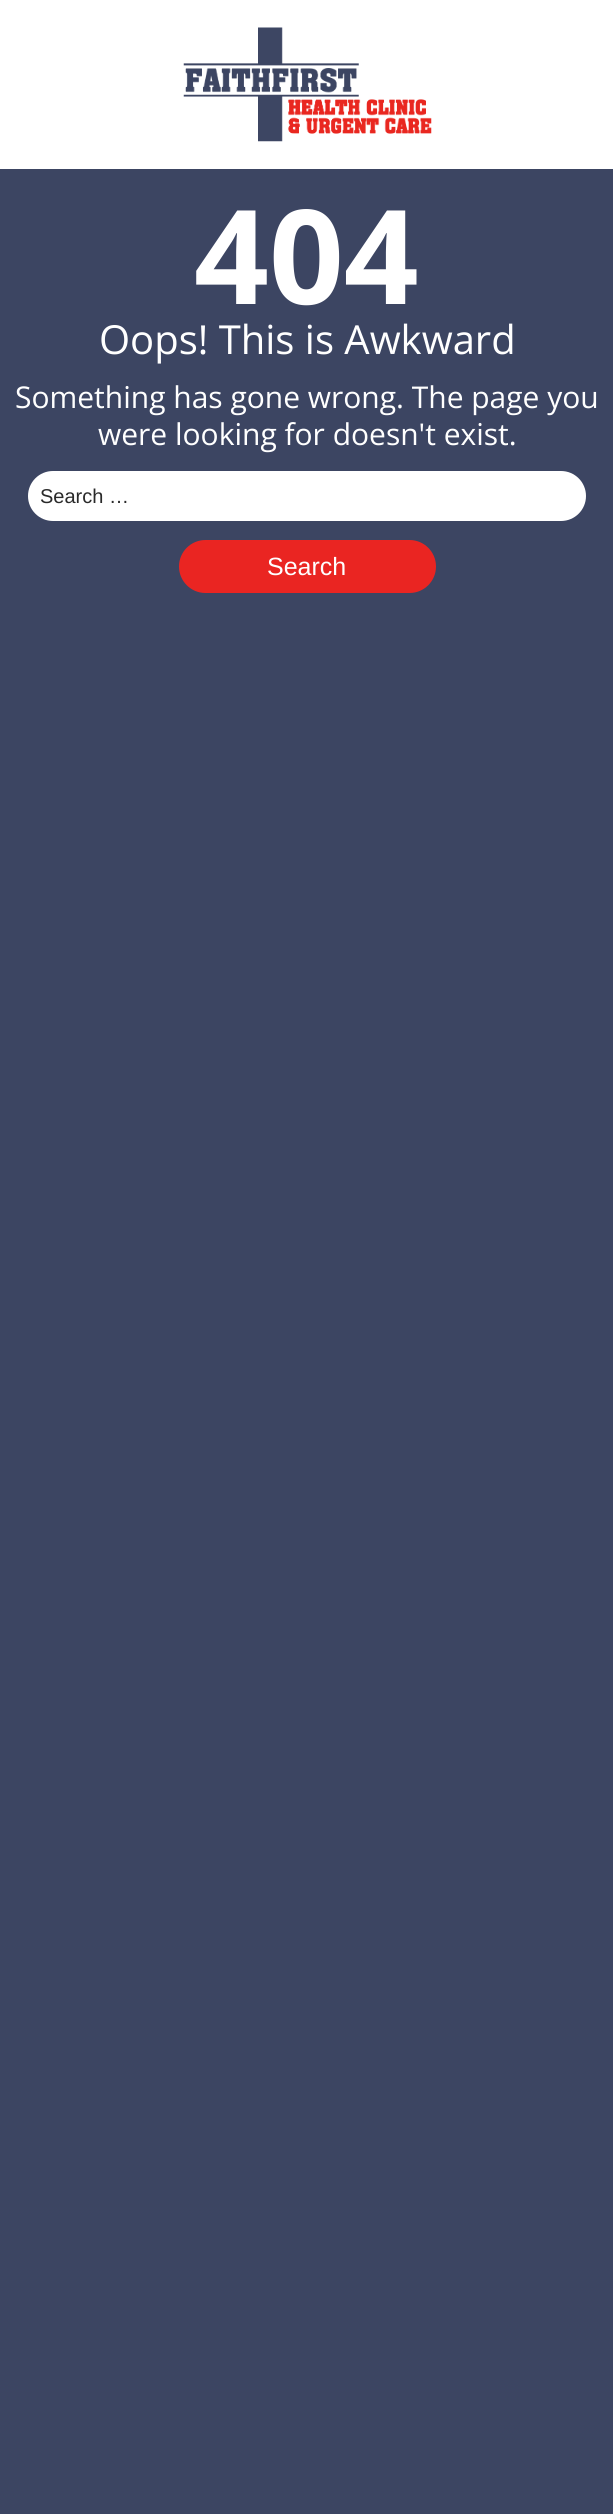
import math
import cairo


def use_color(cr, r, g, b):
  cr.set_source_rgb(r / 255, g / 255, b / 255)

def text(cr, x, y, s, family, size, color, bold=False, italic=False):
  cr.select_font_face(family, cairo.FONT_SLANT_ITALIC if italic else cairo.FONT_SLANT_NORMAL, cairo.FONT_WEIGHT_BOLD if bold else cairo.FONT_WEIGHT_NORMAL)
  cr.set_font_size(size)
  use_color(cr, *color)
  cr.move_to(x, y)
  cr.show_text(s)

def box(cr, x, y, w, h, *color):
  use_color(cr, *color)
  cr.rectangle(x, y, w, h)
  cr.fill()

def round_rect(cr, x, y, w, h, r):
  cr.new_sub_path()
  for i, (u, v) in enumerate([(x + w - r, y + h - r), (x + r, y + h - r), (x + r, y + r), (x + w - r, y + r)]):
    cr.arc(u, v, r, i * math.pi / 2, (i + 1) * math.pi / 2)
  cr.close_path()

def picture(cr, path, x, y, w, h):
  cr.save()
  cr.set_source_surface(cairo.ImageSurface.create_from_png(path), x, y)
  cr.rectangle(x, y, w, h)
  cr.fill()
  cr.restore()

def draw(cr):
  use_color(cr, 60, 69, 98)
  cr.paint()
  box(cr, 0, 0, 613, 169, 255, 255, 255)
  picture(cr, "img_01.png", 183, 27, 249, 115)
  round_rect(cr, 28, 471, 558, 50, 25)
  cr.fill()
  use_color(cr, 234, 37, 34)
  round_rect(cr, 179, 540, 257, 53, 26.5)
  cr.fill()
  text(cr, 194, 304, "404", "Open Sans", 131, (255, 255, 255), bold=True)
  text(cr, 99, 354, "Oops! This is Awkward", "Open Sans", 40, (255, 255, 255))
  text(cr, 15, 408, "Something has gone wrong. The page you", "Open Sans", 30, (255, 255, 255))
  text(cr, 98, 445, "were looking for doesn't exist.", "Open Sans", 30, (255, 255, 255))
  text(cr, 40, 503, "Search …", "Liberation Sans", 20, (42, 42, 42))
  text(cr, 267, 575, "Search", "Liberation Sans", 25, (255, 255, 255))


surface = cairo.ImageSurface(cairo.FORMAT_RGB24, 613, 2514)
cr = cairo.Context(surface)
options = cairo.FontOptions()
options.set_hint_metrics(cairo.HINT_METRICS_OFF)
options.set_hint_style(cairo.HINT_STYLE_NONE)
cr.set_font_options(options)
cr.set_miter_limit(4)
draw(cr)
surface.write_to_png("out.png")
